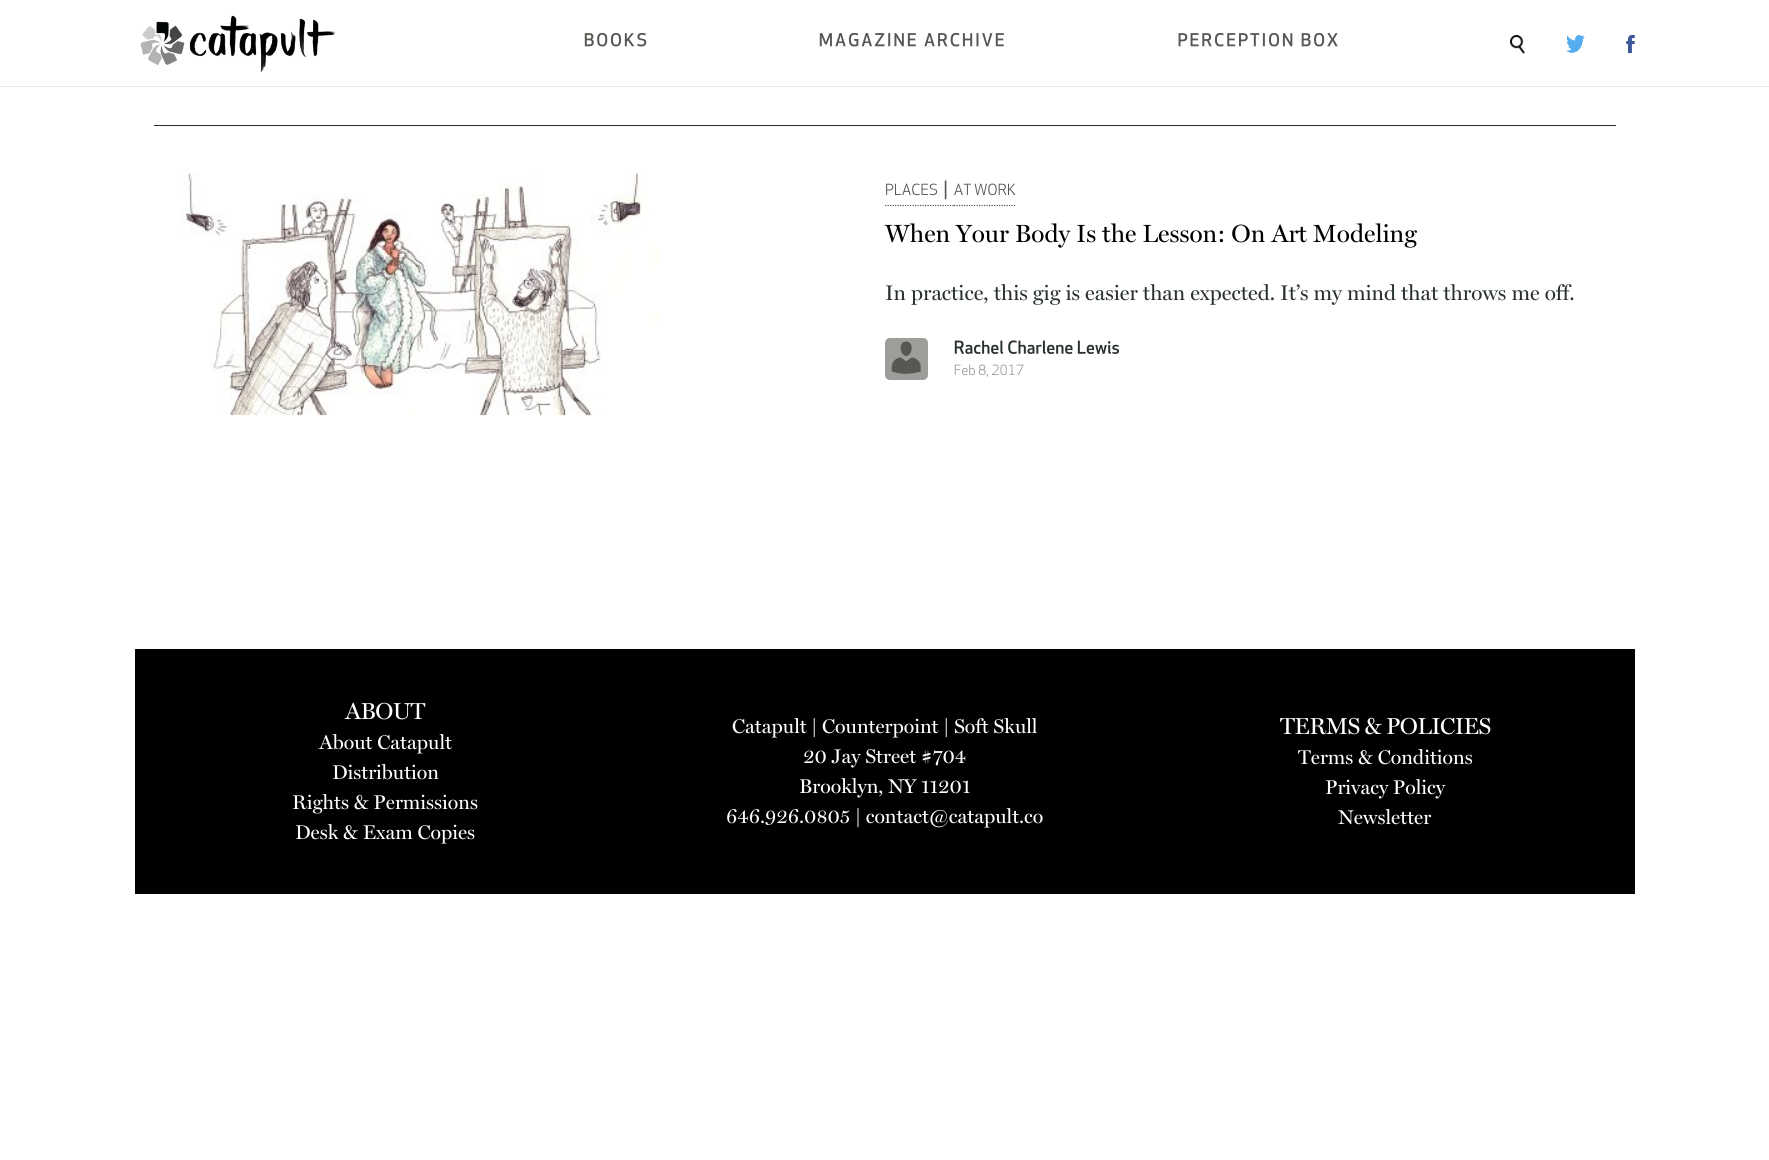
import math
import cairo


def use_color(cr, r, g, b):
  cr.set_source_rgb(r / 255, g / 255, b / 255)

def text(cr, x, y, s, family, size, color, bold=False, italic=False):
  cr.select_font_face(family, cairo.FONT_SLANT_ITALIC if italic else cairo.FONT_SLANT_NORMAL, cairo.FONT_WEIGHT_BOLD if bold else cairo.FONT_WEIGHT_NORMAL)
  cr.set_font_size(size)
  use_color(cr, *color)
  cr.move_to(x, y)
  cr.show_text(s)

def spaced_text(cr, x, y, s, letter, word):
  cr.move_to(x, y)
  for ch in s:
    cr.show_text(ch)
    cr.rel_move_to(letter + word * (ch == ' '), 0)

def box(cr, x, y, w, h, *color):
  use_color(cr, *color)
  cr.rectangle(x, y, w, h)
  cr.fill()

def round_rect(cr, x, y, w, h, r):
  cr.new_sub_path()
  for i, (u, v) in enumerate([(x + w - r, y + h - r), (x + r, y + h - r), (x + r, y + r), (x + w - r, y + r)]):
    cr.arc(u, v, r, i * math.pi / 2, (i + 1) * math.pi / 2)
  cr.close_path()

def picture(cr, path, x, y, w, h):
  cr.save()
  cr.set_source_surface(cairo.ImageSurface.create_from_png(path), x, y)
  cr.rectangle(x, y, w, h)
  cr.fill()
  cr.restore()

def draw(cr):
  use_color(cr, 255, 255, 255)
  cr.paint()
  box(cr, 0, 86, 1769, 1, 231, 231, 231)
  picture(cr, "img_01.png", 140, 15, 196, 57)
  picture(cr, "img_02.png", 584, 32, 63, 15)
  picture(cr, "img_03.png", 819, 32, 185, 15)
  picture(cr, "img_04.png", 1178, 32, 160, 15)
  picture(cr, "img_05.png", 1510, 35, 15, 19)
  picture(cr, "img_06.png", 1566, 35, 19, 18)
  picture(cr, "img_07.png", 1626, 35, 9, 19)
  box(cr, 154, 125, 1462, 1, 41, 48, 50)
  picture(cr, "img_08.png", 180, 173, 480, 243)
  picture(cr, "img_09.png", 886, 183, 52, 13)
  cr.new_path()
  cr.move_to(885, 205.5)
  cr.line_to(937.5, 205.5)
  use_color(cr, 88, 87, 84)
  cr.set_line_width(1.2)
  cr.set_dash([1.25, 1.25])
  cr.stroke()
  cr.new_path()
  cr.move_to(937.5, 205.5)
  cr.line_to(954, 205.5)
  cr.stroke()
  cr.new_path()
  cr.move_to(954, 205.5)
  cr.line_to(1016, 205.5)
  cr.stroke()
  picture(cr, "img_10.png", 954, 183, 62, 13)
  use_color(cr, 159, 157, 153)
  round_rect(cr, 885, 338, 43, 42, 5)
  cr.fill()
  picture(cr, "img_11.png", 891, 341, 30, 33)
  picture(cr, "img_12.png", 954, 340, 165, 14)
  picture(cr, "img_13.png", 954, 364, 70, 13)
  box(cr, 135, 649, 1500, 245, 0, 0, 0)
  text(cr, 943, 195, "|", "Liberation Sans", 20, (88, 87, 84))
  text(cr, 885, 242, "When Your Body Is the Lesson: On Art Modeling", "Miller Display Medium", 25, (0, 0, 0))
  text(cr, 885, 300, "In practice, this gig is easier than expected. It’s my mind that throws me off.", "Miller Display Medium", 21.25, (41, 48, 50))
  cr.select_font_face("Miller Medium")
  cr.set_font_size(23.25)
  use_color(cr, 255, 255, 255)
  spaced_text(cr, 345, 719, "ABOUT", -0.6, 0)
  text(cr, 319, 749, "About Catapult", "Miller Medium", 20, (255, 255, 255))
  text(cr, 332, 779, "Distribution", "Miller Medium", 20, (255, 255, 255))
  text(cr, 292, 809, "Rights & Permissions", "Miller Medium", 20, (255, 255, 255))
  text(cr, 295, 839, "Desk & Exam Copies", "Miller Medium", 20, (255, 255, 255))
  text(cr, 732, 733, "Catapult | Counterpoint | Soft Skull", "Miller Medium", 20, (255, 255, 255))
  text(cr, 803, 763, "20 Jay Street #704", "Miller Medium", 20, (255, 255, 255))
  text(cr, 799, 793, "Brooklyn, NY 11201", "Miller Medium", 20, (255, 255, 255))
  text(cr, 726, 823, "646.926.0805 | contact@catapult.co", "Miller Medium", 20, (255, 255, 255))
  cr.set_font_size(23.25)
  spaced_text(cr, 1280, 734, "TERMS & POLICIES", -0.6, 0)
  text(cr, 1298, 764, "Terms & Conditions", "Miller Medium", 20, (255, 255, 255))
  text(cr, 1325, 794, "Privacy Policy", "Miller Medium", 20, (255, 255, 255))
  text(cr, 1338, 824, "Newsletter", "Miller Medium", 20, (255, 255, 255))


surface = cairo.ImageSurface(cairo.FORMAT_RGB24, 1769, 1160)
cr = cairo.Context(surface)
options = cairo.FontOptions()
options.set_hint_metrics(cairo.HINT_METRICS_OFF)
options.set_hint_style(cairo.HINT_STYLE_NONE)
cr.set_font_options(options)
cr.set_miter_limit(4)
draw(cr)
surface.write_to_png("out.png")
